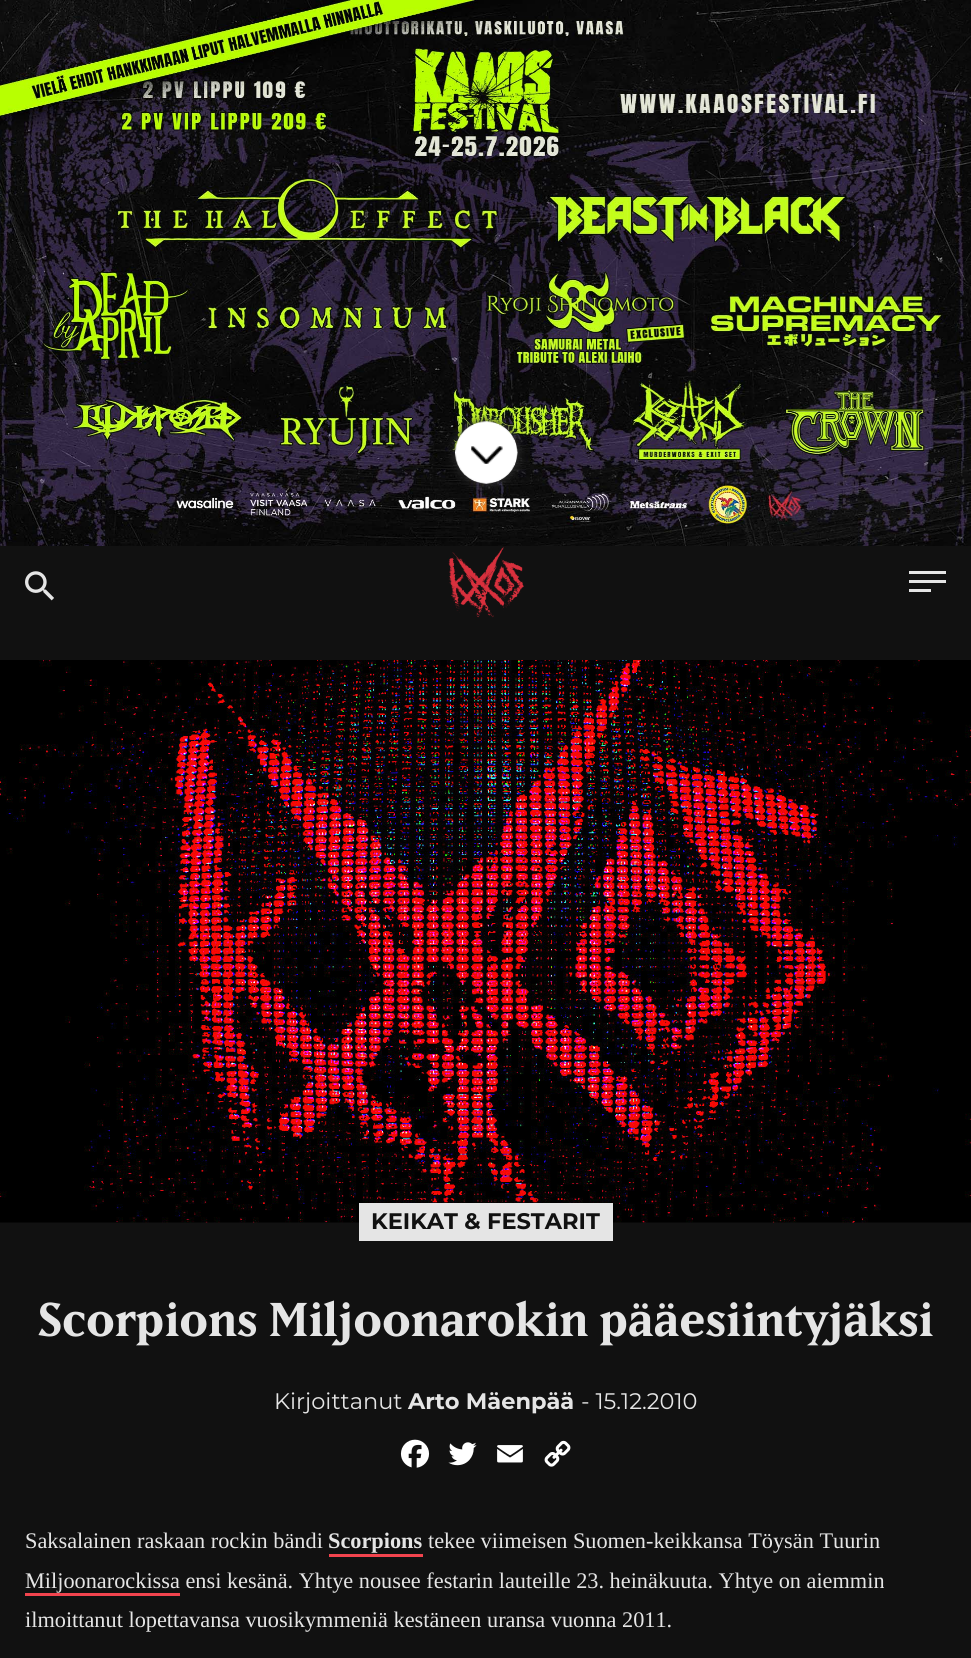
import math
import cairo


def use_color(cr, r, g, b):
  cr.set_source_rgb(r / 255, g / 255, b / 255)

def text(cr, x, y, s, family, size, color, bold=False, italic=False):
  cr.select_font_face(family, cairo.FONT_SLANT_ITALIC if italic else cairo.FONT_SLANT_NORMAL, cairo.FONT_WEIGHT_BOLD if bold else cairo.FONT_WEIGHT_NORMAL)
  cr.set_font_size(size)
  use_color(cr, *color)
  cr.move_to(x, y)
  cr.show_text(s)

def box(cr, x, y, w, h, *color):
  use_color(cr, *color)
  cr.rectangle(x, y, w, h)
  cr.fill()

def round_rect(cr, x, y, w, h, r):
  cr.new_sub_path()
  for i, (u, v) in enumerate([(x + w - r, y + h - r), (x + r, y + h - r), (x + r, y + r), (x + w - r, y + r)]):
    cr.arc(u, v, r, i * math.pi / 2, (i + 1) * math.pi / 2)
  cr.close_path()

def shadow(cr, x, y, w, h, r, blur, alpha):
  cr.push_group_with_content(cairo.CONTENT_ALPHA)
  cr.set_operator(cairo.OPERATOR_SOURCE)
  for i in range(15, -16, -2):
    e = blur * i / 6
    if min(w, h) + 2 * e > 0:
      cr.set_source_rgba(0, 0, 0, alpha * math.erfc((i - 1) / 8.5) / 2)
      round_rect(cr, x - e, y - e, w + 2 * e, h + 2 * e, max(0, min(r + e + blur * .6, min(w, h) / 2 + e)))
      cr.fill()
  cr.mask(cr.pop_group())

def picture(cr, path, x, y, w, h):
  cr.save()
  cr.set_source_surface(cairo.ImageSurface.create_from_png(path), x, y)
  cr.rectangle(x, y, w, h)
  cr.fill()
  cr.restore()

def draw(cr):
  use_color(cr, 17, 17, 17)
  cr.paint()
  picture(cr, "img_01.png", 0, 0, 971, 546)
  use_color(cr, 51, 51, 51)
  shadow(cr, 455, 421, 63, 63, 31.5, 5, 1)
  picture(cr, "img_02.png", 455, 421, 63, 63)
  picture(cr, "img_03.png", 448, 546, 76, 72)
  picture(cr, "img_04.png", 25, 571, 29, 30)
  box(cr, 909, 589, 22, 3, 229, 229, 229)
  box(cr, 909, 571, 37, 3, 229, 229, 229)
  box(cr, 909, 580, 37, 3, 229, 229, 229)
  picture(cr, "img_05.png", 0, 660, 971, 563)
  box(cr, 359, 1203, 254, 38, 229, 229, 229)
  picture(cr, "img_06.png", 400, 1439, 30, 29)
  picture(cr, "img_07.png", 448, 1442, 29, 24)
  picture(cr, "img_08.png", 497, 1445, 26, 18)
  picture(cr, "img_09.png", 544, 1440, 27, 27)
  box(cr, 329, 1554, 94, 3, 242, 68, 78)
  box(cr, 25, 1593, 155, 3, 242, 68, 78)
  text(cr, 371, 1229, "KEIKAT & FESTARIT", "Montserrat", 22.5, (17, 17, 17), bold=True)
  text(cr, 38, 1336, "Scorpions Miljoonarokin pääesiintyjäksi", "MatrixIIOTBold", 46.75, (229, 229, 229), bold=True)
  text(cr, 274, 1409, "Kirjoittanut", "Montserrat", 22.5, (229, 229, 229))
  text(cr, 408, 1409, "Arto Mäenpää", "Montserrat", 22.5, (229, 229, 229), bold=True)
  text(cr, 581, 1409, "- 15.12.2010", "Montserrat", 22.5, (229, 229, 229))
  text(cr, 25, 1548, "Saksalainen raskaan rockin bändi", "Liberation Serif", 22.3, (229, 229, 229))
  text(cr, 328, 1548, "Scorpions", "Liberation Serif", 22.3, (229, 229, 229), bold=True)
  text(cr, 428, 1548, "tekee viimeisen Suomen-keikkansa Töysän Tuurin", "Liberation Serif", 22.3, (229, 229, 229))
  text(cr, 25, 1588, "Miljoonarockissa ensi kesänä. Yhtye nousee festarin lauteille 23. heinäkuuta. Yhtye on aiemmin", "Liberation Serif", 22.3, (229, 229, 229))
  text(cr, 25, 1627, "ilmoittanut lopettavansa vuosikymmeniä kestäneen uransa vuonna 2011.", "Liberation Serif", 22.3, (229, 229, 229))


surface = cairo.ImageSurface(cairo.FORMAT_RGB24, 971, 1658)
cr = cairo.Context(surface)
options = cairo.FontOptions()
options.set_hint_metrics(cairo.HINT_METRICS_OFF)
options.set_hint_style(cairo.HINT_STYLE_NONE)
cr.set_font_options(options)
cr.set_miter_limit(4)
draw(cr)
surface.write_to_png("out.png")
